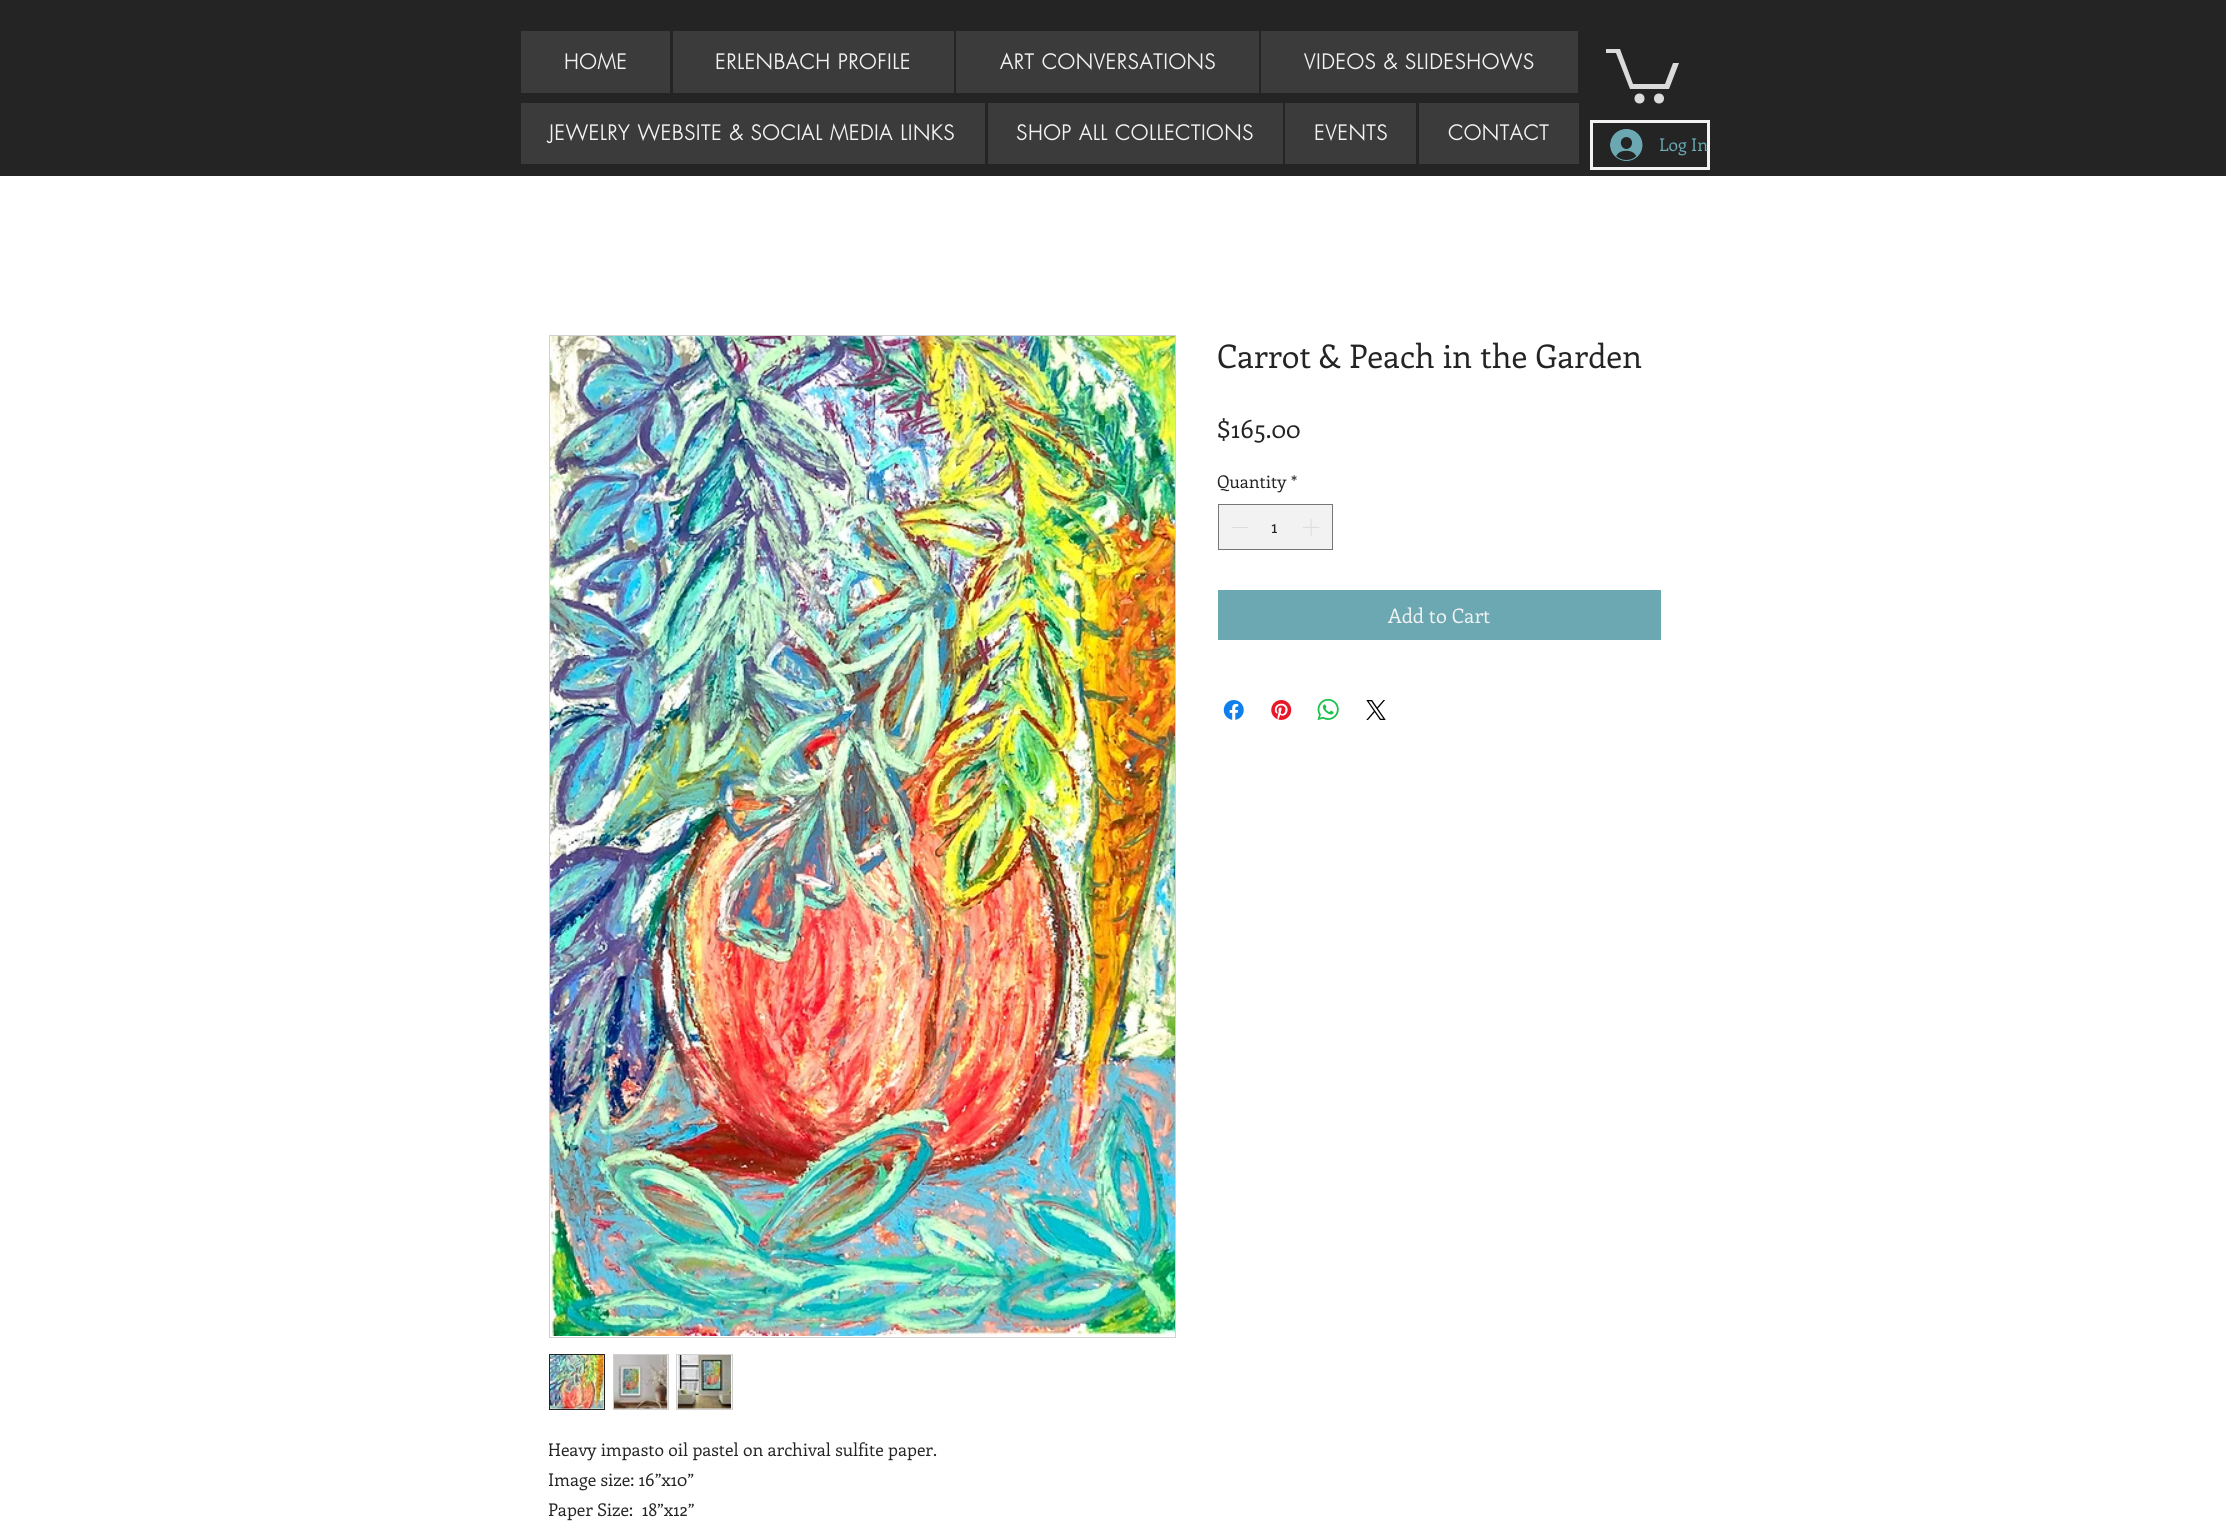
import math
import cairo


def use_color(cr, r, g, b):
  cr.set_source_rgb(r / 255, g / 255, b / 255)

def text(cr, x, y, s, family, size, color, bold=False, italic=False):
  cr.select_font_face(family, cairo.FONT_SLANT_ITALIC if italic else cairo.FONT_SLANT_NORMAL, cairo.FONT_WEIGHT_BOLD if bold else cairo.FONT_WEIGHT_NORMAL)
  cr.set_font_size(size)
  use_color(cr, *color)
  cr.move_to(x, y)
  cr.show_text(s)

def spaced_text(cr, x, y, s, letter, word):
  cr.move_to(x, y)
  for ch in s:
    cr.show_text(ch)
    cr.rel_move_to(letter + word * (ch == ' '), 0)

def box(cr, x, y, w, h, *color):
  use_color(cr, *color)
  cr.rectangle(x, y, w, h)
  cr.fill()

def picture(cr, path, x, y, w, h):
  cr.save()
  cr.set_source_surface(cairo.ImageSurface.create_from_png(path), x, y)
  cr.rectangle(x, y, w, h)
  cr.fill()
  cr.restore()

def draw(cr):
  use_color(cr, 255, 255, 255)
  cr.paint()
  box(cr, 0, 0, 2226, 176, 36, 36, 36)
  box(cr, 521, 31, 149, 62, 59, 59, 59)
  box(cr, 673, 31, 281, 62, 59, 59, 59)
  box(cr, 956, 31, 303, 62, 59, 59, 59)
  box(cr, 1261, 31, 317, 62, 59, 59, 59)
  box(cr, 521, 103, 464, 61, 59, 59, 59)
  box(cr, 988, 103, 295, 61, 59, 59, 59)
  box(cr, 1285, 103, 131, 61, 59, 59, 59)
  box(cr, 1419, 103, 160, 61, 59, 59, 59)
  use_color(cr, 219, 219, 219)
  cr.new_path()
  cr.move_to(1679, 63)
  cr.line_to(1669, 89)
  cr.line_to(1630, 89)
  cr.line_to(1616, 53)
  cr.line_to(1606, 53)
  cr.line_to(1606, 49)
  cr.line_to(1620, 49)
  cr.line_to(1633, 84)
  cr.line_to(1665, 84)
  cr.line_to(1673, 63)
  cr.fill()
  cr.arc(1659, 98.5, 5, 0, 2 * math.pi)
  cr.fill()
  cr.arc(1639.5, 98.5, 5, 0, 2 * math.pi)
  cr.fill()
  cr.rectangle(1591.5, 121.5, 117, 47)
  use_color(cr, 242, 242, 242)
  cr.set_line_width(3)
  cr.stroke()
  picture(cr, "img_01.png", 1610, 129, 33, 32)
  cr.rectangle(1218.5, 504.5, 114, 45)
  cr.fill_preserve()
  use_color(cr, 118, 118, 118)
  cr.set_line_width(1)
  cr.stroke()
  box(cr, 1232, 527, 16, 1, 221, 221, 221)
  picture(cr, "img_02.png", 1303, 519, 17, 17)
  box(cr, 1218, 590, 443, 50, 107, 168, 178)
  picture(cr, "img_03.png", 1223, 700, 21, 20)
  picture(cr, "img_04.png", 1271, 700, 21, 20)
  picture(cr, "img_05.png", 1317, 698, 22, 23)
  picture(cr, "img_06.png", 1366, 700, 20, 20)
  cr.rectangle(549.5, 335.5, 626, 1002)
  use_color(cr, 209, 209, 209)
  cr.stroke()
  picture(cr, "img_07.png", 550, 336, 625, 1000)
  cr.rectangle(549.5, 1354.5, 55, 55)
  use_color(cr, 36, 36, 36)
  cr.stroke()
  picture(cr, "img_08.png", 550, 1355, 54, 54)
  cr.rectangle(613.5, 1354.5, 55, 55)
  use_color(cr, 209, 209, 209)
  cr.stroke()
  picture(cr, "img_09.png", 613, 1355, 55, 54)
  cr.rectangle(676.5, 1354.5, 56, 55)
  cr.stroke()
  picture(cr, "img_10.png", 677, 1355, 55, 54)
  cr.select_font_face("futura", cairo.FONT_SLANT_NORMAL, cairo.FONT_WEIGHT_BOLD)
  cr.set_font_size(20)
  use_color(cr, 242, 242, 242)
  spaced_text(cr, 564, 69, "HOME", 1, 0)
  spaced_text(cr, 715, 69, "ERLENBACH PROFILE", 1, 0)
  spaced_text(cr, 1000, 69, "ART CONVERSATIONS", 1, 0)
  spaced_text(cr, 1304, 69, "VIDEOS & SLIDESHOWS", 1, 0)
  spaced_text(cr, 549, 140, "JEWELRY WEBSITE & SOCIAL MEDIA LINKS", 1, 0)
  spaced_text(cr, 1016, 140, "SHOP ALL COLLECTIONS", 1, 0)
  spaced_text(cr, 1314, 140, "EVENTS", 1, 0)
  spaced_text(cr, 1448, 140, "CONTACT", 1, 0)
  text(cr, 1659, 151, "Log In", "Enriqueta", 17.5, (107, 168, 178))
  text(cr, 1217, 368, "Carrot & Peach in the Garden", "Enriqueta", 32.5, (36, 36, 36))
  text(cr, 1217, 438, "$165.00", "Enriqueta", 25, (36, 36, 36))
  text(cr, 1217, 488, "Quantity", "Enriqueta", 17.5, (36, 36, 36))
  text(cr, 1291, 488, "*", "Enriqueta", 17.5, (36, 36, 36))
  text(cr, 1271, 533, "1", "Enriqueta", 17.5, (36, 36, 36))
  text(cr, 1388, 623, "Add to Cart", "Enriqueta", 20, (242, 242, 242))
  cr.save()
  cr.rectangle(549, 1435, 625, 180)
  cr.clip()
  text(cr, 548, 1456, "Heavy impasto oil pastel on archival sulfite paper.", "Enriqueta", 17.5, (36, 36, 36))
  cr.restore()
  text(cr, 548, 1486, "Image size: 16”x10”", "Enriqueta", 17.5, (36, 36, 36))
  text(cr, 548, 1516, "Paper Size:  18”x12”", "Enriqueta", 17.5, (36, 36, 36))


surface = cairo.ImageSurface(cairo.FORMAT_RGB24, 2226, 1529)
cr = cairo.Context(surface)
options = cairo.FontOptions()
options.set_hint_metrics(cairo.HINT_METRICS_OFF)
options.set_hint_style(cairo.HINT_STYLE_NONE)
cr.set_font_options(options)
cr.set_miter_limit(4)
draw(cr)
surface.write_to_png("out.png")
